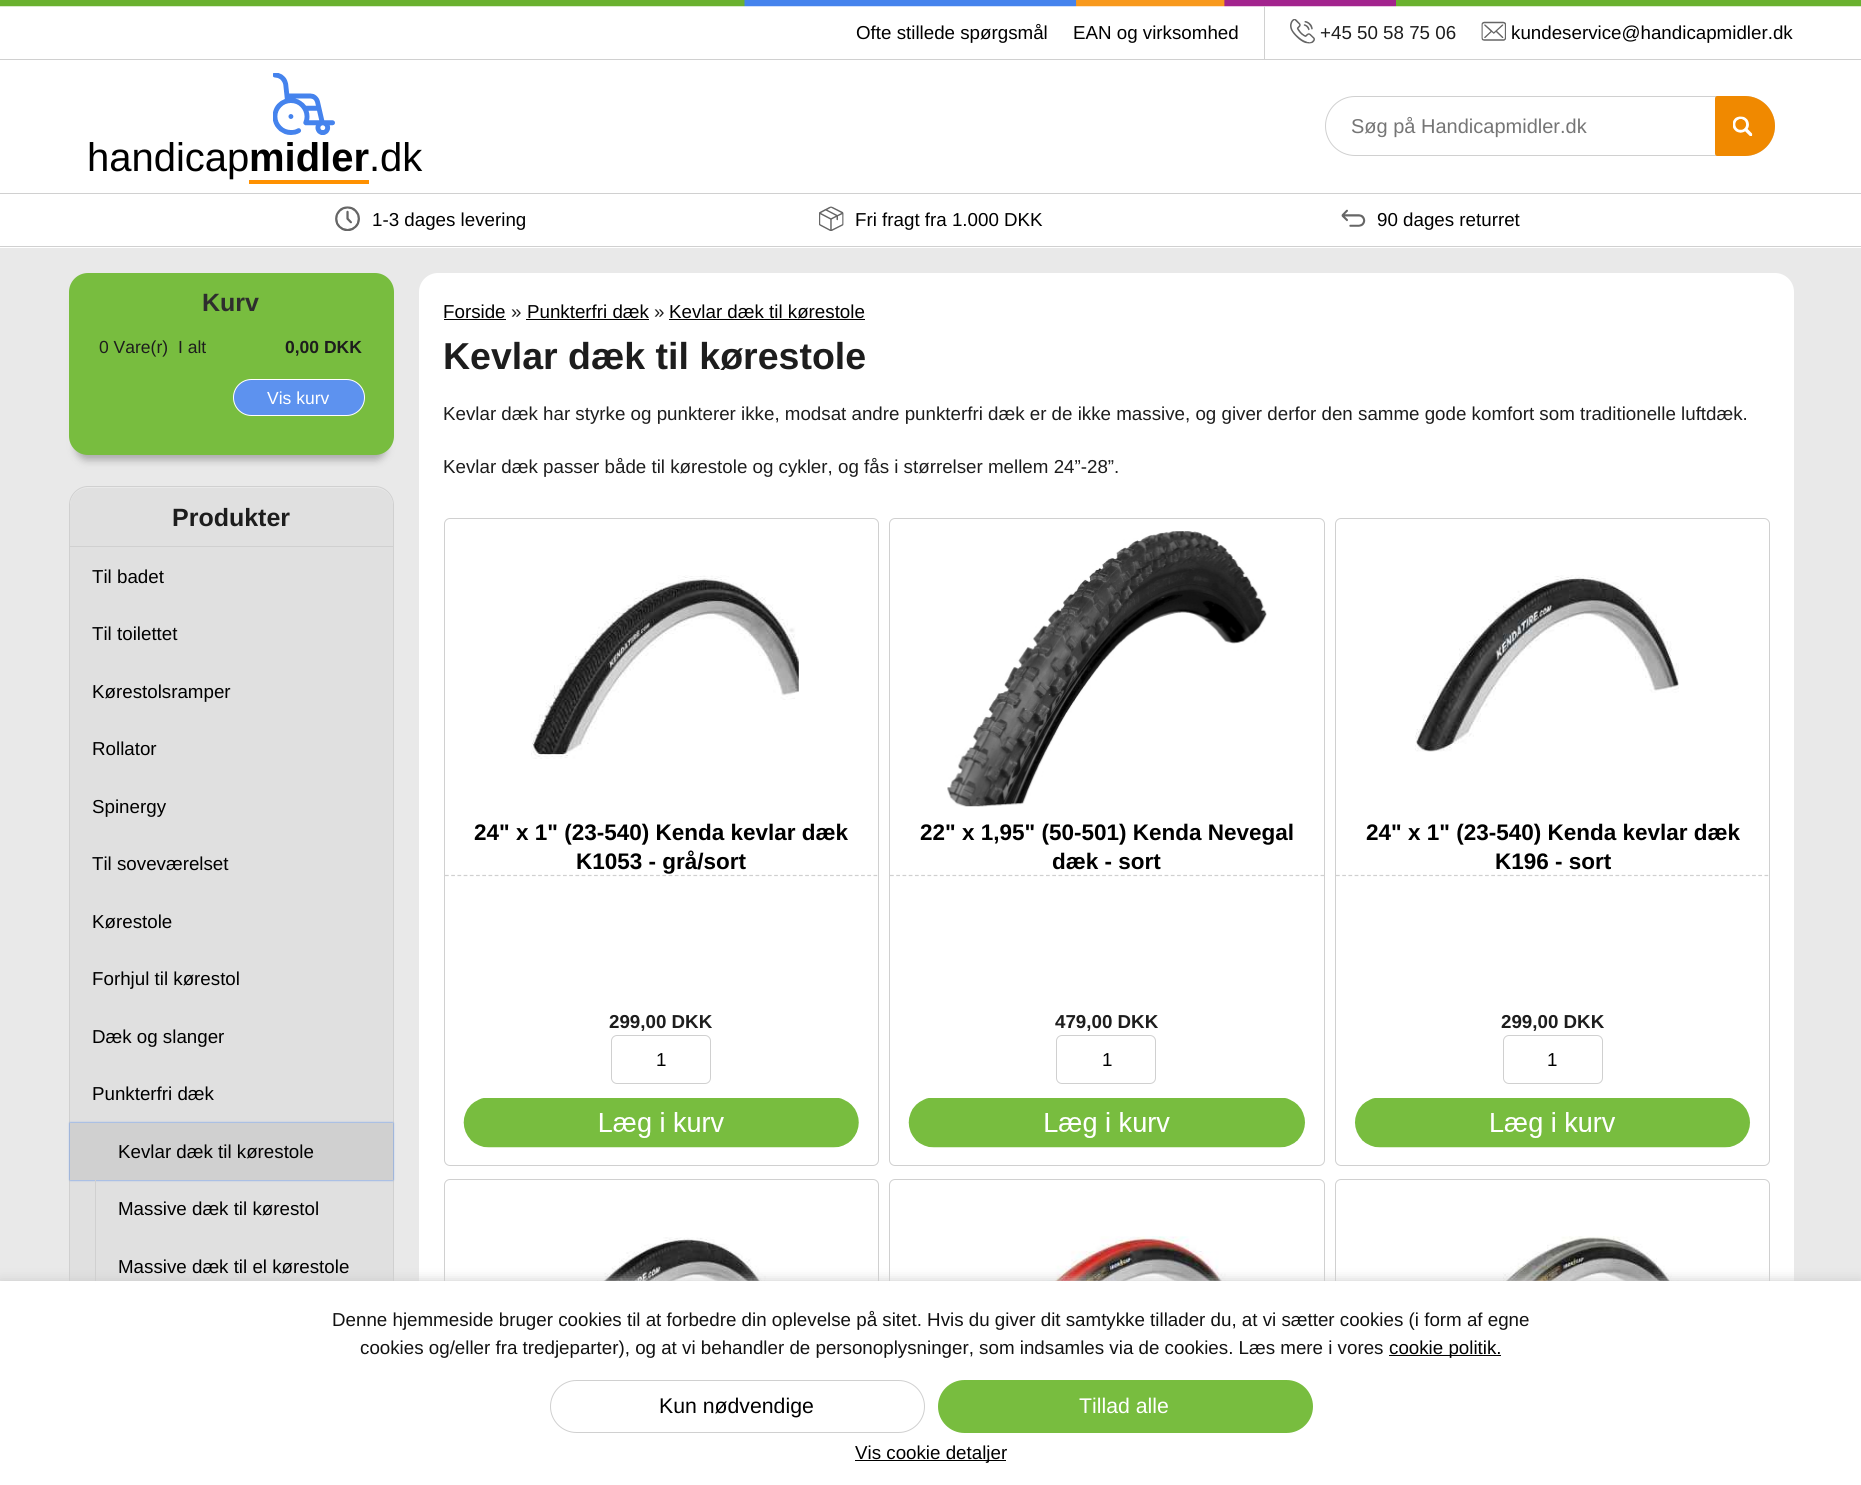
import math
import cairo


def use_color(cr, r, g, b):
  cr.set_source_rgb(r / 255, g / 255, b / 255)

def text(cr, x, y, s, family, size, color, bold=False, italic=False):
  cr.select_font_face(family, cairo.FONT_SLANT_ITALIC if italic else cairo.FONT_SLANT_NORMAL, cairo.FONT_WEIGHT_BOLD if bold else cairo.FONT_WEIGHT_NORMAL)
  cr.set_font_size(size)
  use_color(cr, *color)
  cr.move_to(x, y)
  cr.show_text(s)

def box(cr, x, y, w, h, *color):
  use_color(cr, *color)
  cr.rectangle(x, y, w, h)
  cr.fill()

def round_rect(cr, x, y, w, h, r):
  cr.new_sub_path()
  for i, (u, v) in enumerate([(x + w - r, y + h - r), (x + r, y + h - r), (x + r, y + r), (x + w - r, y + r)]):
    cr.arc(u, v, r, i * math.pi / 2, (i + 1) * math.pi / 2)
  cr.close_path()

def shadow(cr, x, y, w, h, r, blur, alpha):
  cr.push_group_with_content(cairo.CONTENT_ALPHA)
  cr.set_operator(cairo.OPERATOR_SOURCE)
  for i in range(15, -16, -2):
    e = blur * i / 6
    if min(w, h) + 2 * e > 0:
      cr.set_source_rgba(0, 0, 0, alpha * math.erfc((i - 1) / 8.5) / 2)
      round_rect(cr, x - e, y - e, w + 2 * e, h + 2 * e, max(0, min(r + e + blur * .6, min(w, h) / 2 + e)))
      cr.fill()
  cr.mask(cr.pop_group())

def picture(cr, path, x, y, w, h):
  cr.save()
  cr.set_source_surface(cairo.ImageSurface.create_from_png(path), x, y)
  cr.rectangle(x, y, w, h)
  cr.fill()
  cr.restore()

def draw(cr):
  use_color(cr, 233, 233, 233)
  cr.paint()
  box(cr, 0, 6, 1861, 242, 255, 255, 255)
  picture(cr, "img_01.png", 0, 0, 1861, 7)
  box(cr, 0, 59, 1861, 1, 208, 208, 208)
  box(cr, 1264, 6, 1, 53, 208, 208, 208)
  picture(cr, "img_02.png", 1290, 19, 25, 25)
  picture(cr, "img_03.png", 1481, 21, 25, 20)
  box(cr, 0, 193, 1861, 1, 208, 208, 208)
  round_rect(cr, 1325.5, 96.5, 449, 59, 29.5)
  cr.set_line_width(1)
  cr.stroke()
  use_color(cr, 240, 137, 0)
  cr.new_path()
  cr.move_to(1717.5, 96)
  cr.line_to(1745, 96)
  cr.curve_to(1761.5, 96, 1775, 109.5, 1775, 126)
  cr.curve_to(1775, 142.5, 1761.5, 156, 1745, 156)
  cr.line_to(1717.5, 156)
  cr.curve_to(1716, 156, 1715, 155, 1715, 153.5)
  cr.line_to(1715, 98.5)
  cr.curve_to(1715, 97, 1716, 96, 1717.5, 96)
  cr.close_path()
  cr.fill()
  picture(cr, "img_04.png", 1733, 116, 20, 20)
  picture(cr, "img_05.png", 273, 73, 62, 62)
  box(cr, 249, 180, 120, 4, 255, 145, 0)
  box(cr, 0, 246, 1861, 1, 208, 208, 208)
  picture(cr, "img_06.png", 335, 206, 25, 25)
  picture(cr, "img_07.png", 819, 206, 25, 25)
  picture(cr, "img_08.png", 1341, 209, 25, 18)
  use_color(cr, 170, 170, 170)
  shadow(cr, 76, 293, 310, 167, 11, 4, 1)
  use_color(cr, 120, 189, 63)
  round_rect(cr, 69, 273, 325, 182, 19)
  cr.fill()
  use_color(cr, 93, 146, 239)
  round_rect(cr, 233.5, 379.5, 131, 36, 18)
  cr.fill_preserve()
  use_color(cr, 255, 255, 255)
  cr.stroke()
  cr.new_path()
  cr.move_to(88, 486.5)
  cr.line_to(375, 486.5)
  cr.curve_to(385, 486.5, 393.5, 495, 393.5, 505)
  cr.line_to(393.5, 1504.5)
  cr.line_to(69.5, 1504.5)
  cr.line_to(69.5, 505)
  cr.curve_to(69.5, 495, 78, 486.5, 88, 486.5)
  cr.close_path()
  use_color(cr, 208, 208, 208)
  cr.stroke()
  use_color(cr, 224, 224, 224)
  cr.new_path()
  cr.move_to(88, 488)
  cr.line_to(375, 488)
  cr.curve_to(385, 488, 393, 496, 393, 506)
  cr.line_to(393, 548)
  cr.line_to(70, 548)
  cr.line_to(70, 506)
  cr.curve_to(70, 496, 78, 488, 88, 488)
  cr.close_path()
  cr.fill()
  box(cr, 70, 546, 323, 1, 208, 208, 208)
  box(cr, 70, 548, 323, 733, 224, 224, 224)
  use_color(cr, 69, 131, 237)
  shadow(cr, 70, 1123, 323, 57, 0, 1, 1)
  box(cr, 70, 1123, 323, 57, 208, 208, 208)
  box(cr, 95, 1180, 1, 101, 208, 208, 208)
  use_color(cr, 255, 255, 255)
  round_rect(cr, 419, 273, 1375, 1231, 19)
  cr.fill()
  box(cr, 444, 319, 62, 1, 0, 0, 0)
  box(cr, 526, 319, 123, 1, 0, 0, 0)
  box(cr, 669, 319, 196, 1, 0, 0, 0)
  round_rect(cr, 444.5, 518.5, 434, 647, 5.5)
  use_color(cr, 208, 208, 208)
  cr.stroke()
  picture(cr, "img_09.png", 531, 575, 268, 184)
  cr.new_path()
  cr.move_to(445, 875.5)
  cr.line_to(877.5, 875.5)
  cr.set_line_width(1.2)
  cr.set_dash([3.75, 2.46])
  cr.stroke()
  round_rect(cr, 611.5, 1035.5, 99, 48, 5.5)
  cr.set_line_width(1)
  cr.set_dash([])
  cr.stroke()
  picture(cr, "img_10.png", 463, 1098, 396, 50)
  round_rect(cr, 889.5, 518.5, 435, 647, 5.5)
  cr.stroke()
  picture(cr, "img_11.png", 947, 531, 320, 276)
  cr.new_path()
  cr.move_to(890, 875.5)
  cr.line_to(1324, 875.5)
  cr.set_line_width(1.2)
  cr.set_dash([3.75, 2.49])
  cr.stroke()
  round_rect(cr, 1056.5, 1035.5, 99, 48, 5.5)
  cr.set_line_width(1)
  cr.set_dash([])
  cr.stroke()
  picture(cr, "img_12.png", 908, 1098, 398, 50)
  round_rect(cr, 1335.5, 518.5, 434, 647, 5.5)
  cr.stroke()
  picture(cr, "img_13.png", 1415, 575, 264, 177)
  cr.new_path()
  cr.move_to(1336, 875.5)
  cr.line_to(1769, 875.5)
  cr.set_line_width(1.2)
  cr.set_dash([3.75, 2.46])
  cr.stroke()
  round_rect(cr, 1503.5, 1035.5, 99, 48, 5.5)
  cr.set_line_width(1)
  cr.set_dash([])
  cr.stroke()
  picture(cr, "img_14.png", 1354, 1098, 397, 50)
  round_rect(cr, 444.5, 1179.5, 434, 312, 5.5)
  cr.stroke()
  picture(cr, "img_15.png", 523, 1237, 265, 44)
  round_rect(cr, 889.5, 1179.5, 435, 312, 5.5)
  cr.stroke()
  picture(cr, "img_16.png", 969, 1236, 275, 45)
  round_rect(cr, 1335.5, 1179.5, 434, 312, 5.5)
  cr.stroke()
  picture(cr, "img_17.png", 1422, 1236, 268, 45)
  use_color(cr, 204, 204, 204)
  shadow(cr, 0, 1281, 1861, 204, 0, 6, 1)
  box(cr, 0, 1281, 1861, 204, 255, 255, 255)
  box(cr, 1389, 1355, 112, 1, 0, 0, 0)
  round_rect(cr, 550.5, 1380.5, 374, 52, 26)
  use_color(cr, 208, 208, 208)
  cr.stroke()
  use_color(cr, 120, 189, 63)
  round_rect(cr, 938, 1380, 375, 53, 26.5)
  cr.fill()
  box(cr, 855, 1460, 151, 1, 0, 0, 0)
  text(cr, 856, 39, "Ofte stillede spørgsmål", "Liberation Sans", 18.75, (0, 0, 0))
  text(cr, 1073, 39, "EAN og virksomhed", "Liberation Sans", 18.75, (0, 0, 0))
  text(cr, 1320, 39, "+45 50 58 75 06", "Liberation Sans", 18.75, (29, 29, 29))
  text(cr, 1511, 39, "kundeservice@handicapmidler.dk", "Liberation Sans", 18.75, (0, 0, 0))
  text(cr, 1351, 133, "Søg på Handicapmidler.dk", "Liberation Sans", 20, (117, 117, 117))
  text(cr, 87, 171, "handicap", "Liberation Sans", 40, (0, 0, 0))
  text(cr, 249, 171, "midler", "Liberation Sans", 40, (0, 0, 0), bold=True)
  text(cr, 369, 171, ".dk", "Liberation Sans", 40, (0, 0, 0))
  text(cr, 372, 226, "1-3 dages levering", "Liberation Sans", 18.75, (0, 0, 0))
  text(cr, 855, 226, "Fri fragt fra 1.000 DKK", "Liberation Sans", 18.75, (0, 0, 0))
  text(cr, 1377, 226, "90 dages returret", "Liberation Sans", 18.75, (0, 0, 0))
  text(cr, 202, 311, "Kurv", "Liberation Sans", 25, (46, 46, 46), bold=True)
  text(cr, 99, 353, "0 Vare(r)", "Liberation Sans", 17.5, (29, 29, 29))
  text(cr, 178, 353, "I alt", "Liberation Sans", 17.5, (29, 29, 29))
  text(cr, 285, 353, "0,00 DKK", "Liberation Sans", 17.5, (29, 29, 29), bold=True)
  text(cr, 267, 404, "Vis kurv", "Liberation Sans", 17.5, (255, 255, 255))
  text(cr, 172, 526, "Produkter", "Liberation Sans", 25, (29, 29, 29), bold=True)
  text(cr, 92, 583, "Til badet", "Liberation Sans", 18.75, (0, 0, 0))
  text(cr, 92, 640, "Til toilettet", "Liberation Sans", 18.75, (0, 0, 0))
  text(cr, 92, 698, "Kørestolsramper", "Liberation Sans", 18.75, (0, 0, 0))
  text(cr, 92, 755, "Rollator", "Liberation Sans", 18.75, (0, 0, 0))
  text(cr, 92, 813, "Spinergy", "Liberation Sans", 18.75, (0, 0, 0))
  text(cr, 92, 870, "Til soveværelset", "Liberation Sans", 18.75, (0, 0, 0))
  text(cr, 92, 928, "Kørestole", "Liberation Sans", 18.75, (0, 0, 0))
  text(cr, 92, 985, "Forhjul til kørestol", "Liberation Sans", 18.75, (0, 0, 0))
  text(cr, 92, 1043, "Dæk og slanger", "Liberation Sans", 18.75, (0, 0, 0))
  text(cr, 92, 1100, "Punkterfri dæk", "Liberation Sans", 18.75, (0, 0, 0))
  text(cr, 118, 1158, "Kevlar dæk til kørestole", "Liberation Sans", 18.75, (0, 0, 0))
  text(cr, 118, 1215, "Massive dæk til kørestol", "Liberation Sans", 18.75, (0, 0, 0))
  text(cr, 118, 1273, "Massive dæk til el kørestole", "Liberation Sans", 18.75, (0, 0, 0))
  text(cr, 443, 318, "Forside", "Liberation Sans", 18.75, (0, 0, 0))
  text(cr, 511, 318, "»", "Liberation Sans", 18.75, (29, 29, 29))
  text(cr, 527, 318, "Punkterfri dæk", "Liberation Sans", 18.75, (0, 0, 0))
  text(cr, 654, 318, "»", "Liberation Sans", 18.75, (29, 29, 29))
  text(cr, 669, 318, "Kevlar dæk til kørestole", "Liberation Sans", 18.75, (0, 0, 0))
  text(cr, 443, 369, "Kevlar dæk til kørestole", "Liberation Sans", 37.5, (29, 29, 29), bold=True)
  text(cr, 443, 420, "Kevlar dæk har styrke og punkterer ikke, modsat andre punkterfri dæk er de ikke massive, og giver derfor den samme gode komfort som traditionelle luftdæk.", "Liberation Sans", 18.75, (29, 29, 29))
  text(cr, 443, 473, "Kevlar dæk passer både til kørestole og cykler, og fås i størrelser mellem 24”-28”.", "Liberation Sans", 18.75, (29, 29, 29))
  text(cr, 474, 840, "24\" x 1\" (23-540) Kenda kevlar dæk", "Liberation Sans", 22.5, (0, 0, 0), bold=True)
  text(cr, 576, 869, "K1053 - grå/sort", "Liberation Sans", 22.5, (0, 0, 0), bold=True)
  text(cr, 609, 1028, "299,00 DKK", "Liberation Sans", 18.75, (29, 29, 29), bold=True)
  text(cr, 656, 1066, "1", "Liberation Sans", 18.75, (0, 0, 0))
  text(cr, 920, 840, "22\" x 1,95\" (50-501) Kenda Nevegal", "Liberation Sans", 22.5, (0, 0, 0), bold=True)
  text(cr, 1052, 869, "dæk - sort", "Liberation Sans", 22.5, (0, 0, 0), bold=True)
  text(cr, 1055, 1028, "479,00 DKK", "Liberation Sans", 18.75, (29, 29, 29), bold=True)
  text(cr, 1102, 1066, "1", "Liberation Sans", 18.75, (0, 0, 0))
  text(cr, 1366, 840, "24\" x 1\" (23-540) Kenda kevlar dæk", "Liberation Sans", 22.5, (0, 0, 0), bold=True)
  text(cr, 1495, 869, "K196 - sort", "Liberation Sans", 22.5, (0, 0, 0), bold=True)
  text(cr, 1501, 1028, "299,00 DKK", "Liberation Sans", 18.75, (29, 29, 29), bold=True)
  text(cr, 1547, 1066, "1", "Liberation Sans", 18.75, (0, 0, 0))
  text(cr, 332, 1326, "Denne hjemmeside bruger cookies til at forbedre din oplevelse på sitet. Hvis du giver dit samtykke tillader du, at vi sætter cookies (i form af egne", "Liberation Sans", 18.75, (18, 18, 18))
  text(cr, 360, 1354, "cookies og/eller fra tredjeparter), og at vi behandler de personoplysninger, som indsamles via de cookies. Læs mere i vores", "Liberation Sans", 18.75, (18, 18, 18))
  text(cr, 1389, 1354, "cookie politik.", "Liberation Sans", 18.75, (0, 0, 0))
  text(cr, 659, 1413, "Kun nødvendige", "Liberation Sans", 21.25, (0, 0, 0))
  text(cr, 1079, 1413, "Tillad alle", "Liberation Sans", 21.25, (255, 255, 255))
  text(cr, 855, 1459, "Vis cookie detaljer", "Liberation Sans", 18.75, (0, 0, 0))


surface = cairo.ImageSurface(cairo.FORMAT_RGB24, 1861, 1485)
cr = cairo.Context(surface)
options = cairo.FontOptions()
options.set_hint_metrics(cairo.HINT_METRICS_OFF)
options.set_hint_style(cairo.HINT_STYLE_NONE)
cr.set_font_options(options)
cr.set_miter_limit(4)
draw(cr)
surface.write_to_png("out.png")
